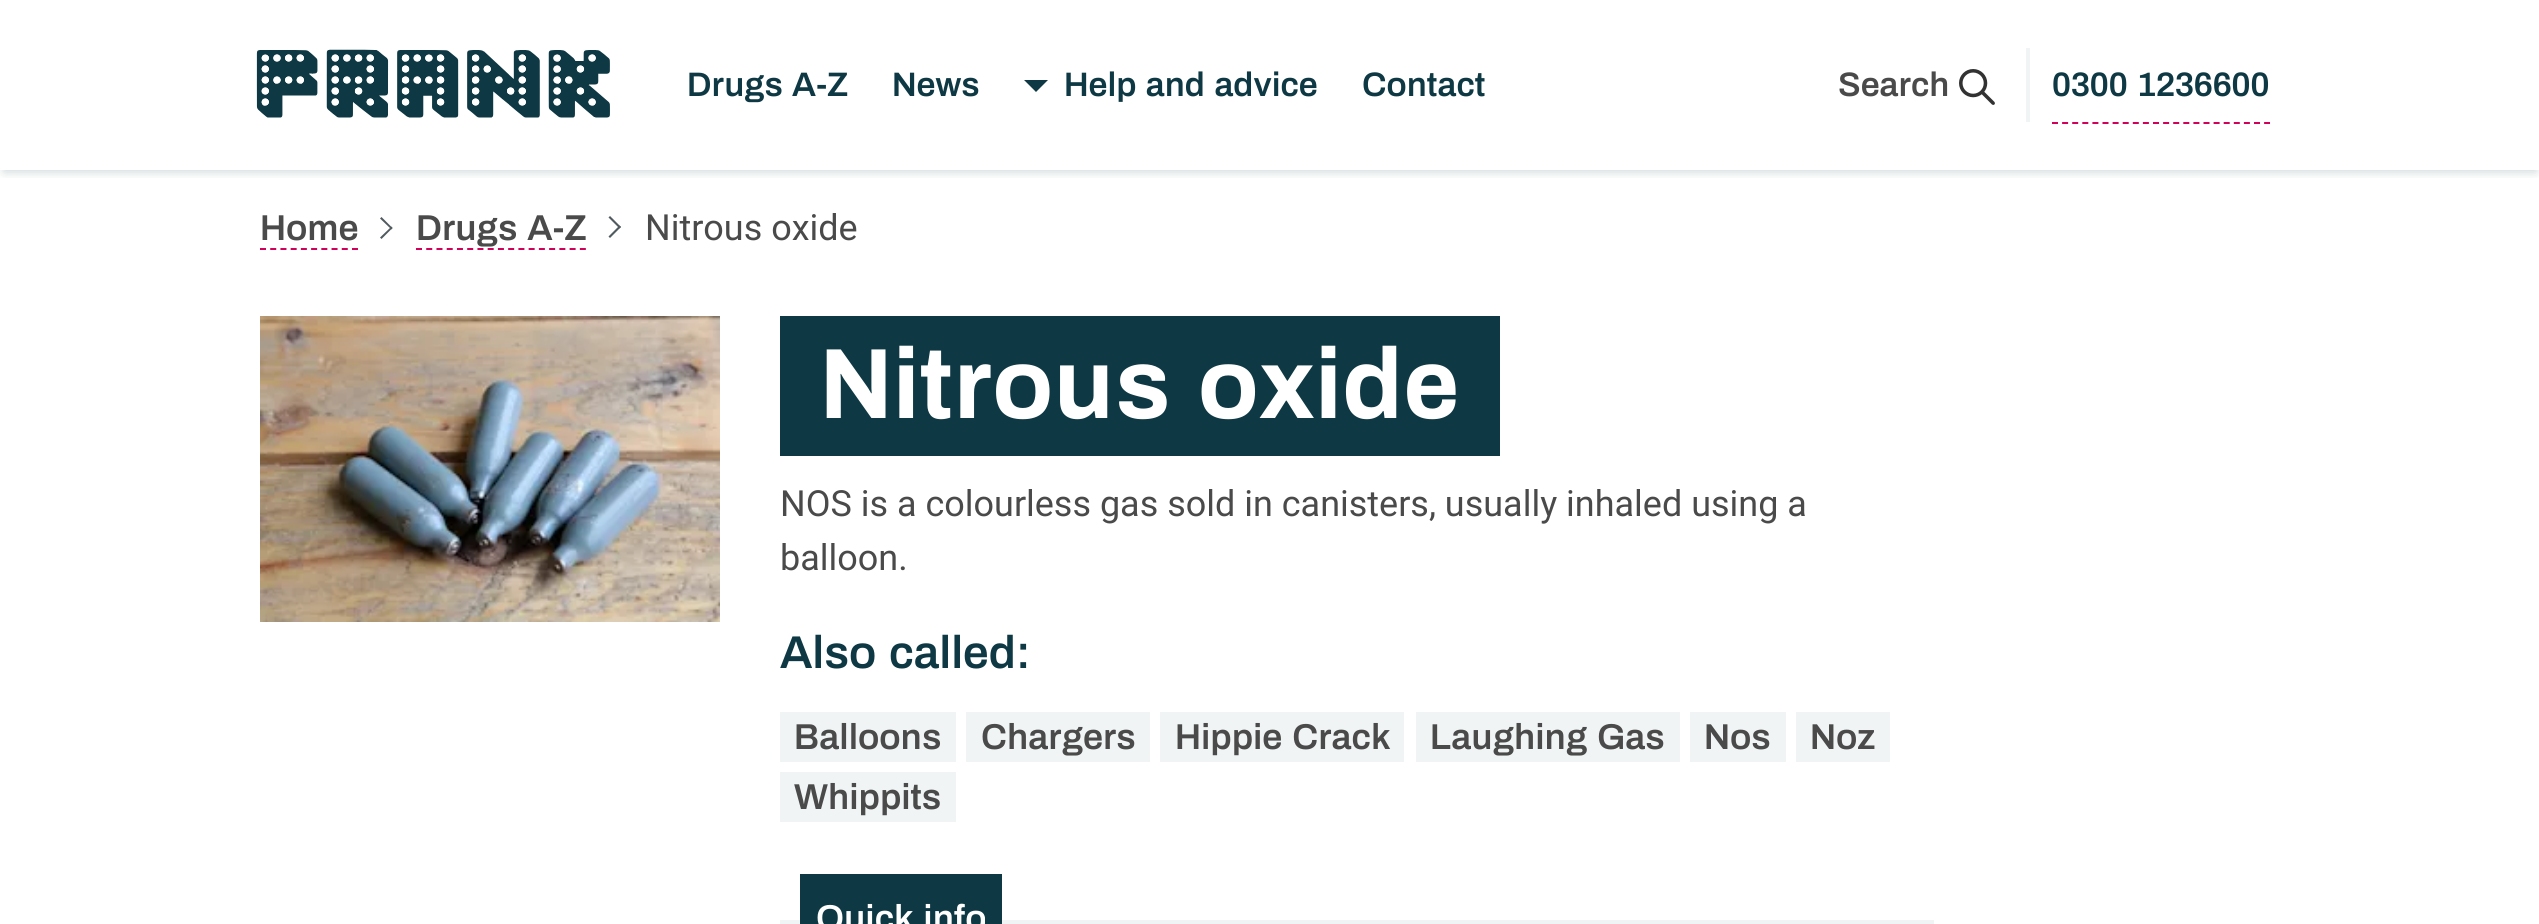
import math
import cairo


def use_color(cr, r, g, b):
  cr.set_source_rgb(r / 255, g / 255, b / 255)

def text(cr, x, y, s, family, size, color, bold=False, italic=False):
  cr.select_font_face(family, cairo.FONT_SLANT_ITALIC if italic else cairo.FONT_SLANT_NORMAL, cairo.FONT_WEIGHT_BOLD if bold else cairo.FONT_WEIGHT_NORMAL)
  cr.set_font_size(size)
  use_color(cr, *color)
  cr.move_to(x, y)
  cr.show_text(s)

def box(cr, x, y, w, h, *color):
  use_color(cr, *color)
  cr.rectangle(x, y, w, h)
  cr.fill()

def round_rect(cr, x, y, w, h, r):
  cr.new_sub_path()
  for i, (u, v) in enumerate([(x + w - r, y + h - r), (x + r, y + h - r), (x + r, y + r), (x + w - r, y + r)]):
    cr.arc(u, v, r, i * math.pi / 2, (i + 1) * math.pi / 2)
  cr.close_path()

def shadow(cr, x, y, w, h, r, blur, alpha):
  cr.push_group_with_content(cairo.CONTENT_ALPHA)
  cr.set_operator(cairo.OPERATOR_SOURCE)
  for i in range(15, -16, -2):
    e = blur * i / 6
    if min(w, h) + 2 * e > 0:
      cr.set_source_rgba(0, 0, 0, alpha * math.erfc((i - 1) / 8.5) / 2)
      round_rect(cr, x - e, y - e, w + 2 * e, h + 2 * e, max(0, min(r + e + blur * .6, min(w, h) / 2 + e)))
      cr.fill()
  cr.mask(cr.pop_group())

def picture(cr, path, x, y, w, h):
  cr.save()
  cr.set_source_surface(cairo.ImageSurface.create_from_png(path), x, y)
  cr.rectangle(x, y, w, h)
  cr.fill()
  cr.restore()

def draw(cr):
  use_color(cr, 255, 255, 255)
  cr.paint()
  cr.save()
  cr.rectangle(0, 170, 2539, 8)
  cr.clip()
  use_color(cr, 14, 57, 68)
  shadow(cr, 4, 10, 2532, 162, 0, 5, 0.2)
  cr.restore()
  picture(cr, "img_01.png", 256, 49, 354, 69)
  use_color(cr, 14, 57, 68)
  cr.set_fill_rule(cairo.FILL_RULE_EVEN_ODD)
  cr.new_path()
  cr.move_to(1024, 80)
  cr.line_to(1036, 92)
  cr.line_to(1048, 80)
  cr.fill()
  picture(cr, "img_02.png", 1959, 69, 36, 36)
  cr.new_path()
  cr.move_to(2052, 123)
  cr.line_to(2270, 123)
  use_color(cr, 209, 0, 88)
  cr.set_dash([6, 4.1])
  cr.stroke()
  box(cr, 2026, 48, 4, 74, 240, 244, 245)
  cr.new_path()
  cr.move_to(260, 249)
  cr.line_to(358, 249)
  use_color(cr, 209, 0, 88)
  cr.set_dash([6, 4.22])
  cr.stroke()
  use_color(cr, 80, 90, 95)
  cr.set_fill_rule(cairo.FILL_RULE_WINDING)
  cr.new_path()
  cr.move_to(381.5, 217)
  cr.line_to(392.5, 228)
  cr.line_to(391.5, 229.5)
  cr.line_to(380, 218.5)
  cr.close_path()
  cr.fill()
  cr.new_path()
  cr.move_to(391.5, 226.5)
  cr.line_to(392.5, 228)
  cr.line_to(381.5, 239)
  cr.line_to(380, 237.5)
  cr.close_path()
  cr.fill()
  cr.new_path()
  cr.move_to(416, 249)
  cr.line_to(586, 249)
  use_color(cr, 209, 0, 88)
  cr.set_dash([6, 4.24])
  cr.stroke()
  use_color(cr, 80, 90, 95)
  cr.new_path()
  cr.move_to(610, 216)
  cr.line_to(621, 227)
  cr.line_to(619.5, 228.5)
  cr.line_to(608.5, 217.5)
  cr.close_path()
  cr.fill()
  cr.new_path()
  cr.move_to(619.5, 225.5)
  cr.line_to(621, 227)
  cr.line_to(610, 238)
  cr.line_to(608.5, 236.5)
  cr.close_path()
  cr.fill()
  picture(cr, "img_03.png", 260, 316, 460, 306)
  box(cr, 780, 316, 720, 140, 14, 57, 68)
  box(cr, 780, 712, 176, 50, 240, 244, 245)
  box(cr, 966, 712, 184, 50, 240, 244, 245)
  box(cr, 1160, 712, 244, 50, 240, 244, 245)
  box(cr, 1416, 712, 264, 50, 240, 244, 245)
  box(cr, 1690, 712, 96, 50, 240, 244, 245)
  box(cr, 1796, 712, 94, 50, 240, 244, 245)
  box(cr, 780, 772, 176, 50, 240, 244, 245)
  box(cr, 780, 920, 1154, 4, 240, 244, 245)
  box(cr, 800, 874, 202, 50, 14, 57, 68)
  text(cr, 687, 96, "Drugs A-Z", "Archivo SemiBold", 34, (14, 57, 68))
  text(cr, 892, 96, "News", "Archivo SemiBold", 34, (14, 57, 68))
  text(cr, 1064, 96, "Help and advice", "Archivo SemiBold", 34, (14, 57, 68))
  text(cr, 1362, 96, "Contact", "Archivo SemiBold", 34, (14, 57, 68))
  text(cr, 1838, 96, "Search", "Archivo SemiBold", 34, (74, 74, 74))
  text(cr, 2052, 96, "0300 1236600", "Archivo SemiBold", 34, (14, 57, 68))
  text(cr, 260, 240, "Home", "Archivo SemiBold", 36, (74, 74, 74))
  text(cr, 416, 240, "Drugs A-Z", "Archivo SemiBold", 36, (74, 74, 74))
  text(cr, 645, 240, "Nitrous oxide", "Roboto", 36, (74, 74, 74))
  text(cr, 820, 418, "Nitrous oxide", "Archivo", 100, (255, 255, 255), bold=True)
  text(cr, 780, 516, "NOS is a colourless gas sold in canisters, usually inhaled using a", "Roboto", 36, (74, 74, 74))
  text(cr, 780, 570, "balloon.", "Roboto", 36, (74, 74, 74))
  text(cr, 780, 668, "Also called:", "Archivo SemiBold", 46, (14, 57, 68))
  text(cr, 794, 749, "Balloons", "Archivo SemiBold", 36, (74, 74, 74))
  text(cr, 981, 749, "Chargers", "Archivo SemiBold", 36, (74, 74, 74))
  text(cr, 1175, 749, "Hippie Crack", "Archivo SemiBold", 36, (74, 74, 74))
  text(cr, 1430, 749, "Laughing Gas", "Archivo SemiBold", 36, (74, 74, 74))
  text(cr, 1704, 749, "Nos", "Archivo SemiBold", 36, (74, 74, 74))
  text(cr, 1810, 749, "Noz", "Archivo SemiBold", 36, (74, 74, 74))
  text(cr, 794, 809, "Whippits", "Archivo SemiBold", 36, (74, 74, 74))
  text(cr, 816, 930, "Quick info", "Archivo SemiBold", 36, (255, 255, 255))


surface = cairo.ImageSurface(cairo.FORMAT_RGB24, 2539, 924)
cr = cairo.Context(surface)
options = cairo.FontOptions()
options.set_hint_metrics(cairo.HINT_METRICS_OFF)
options.set_hint_style(cairo.HINT_STYLE_NONE)
cr.set_font_options(options)
cr.set_miter_limit(4)
draw(cr)
surface.write_to_png("out.png")
